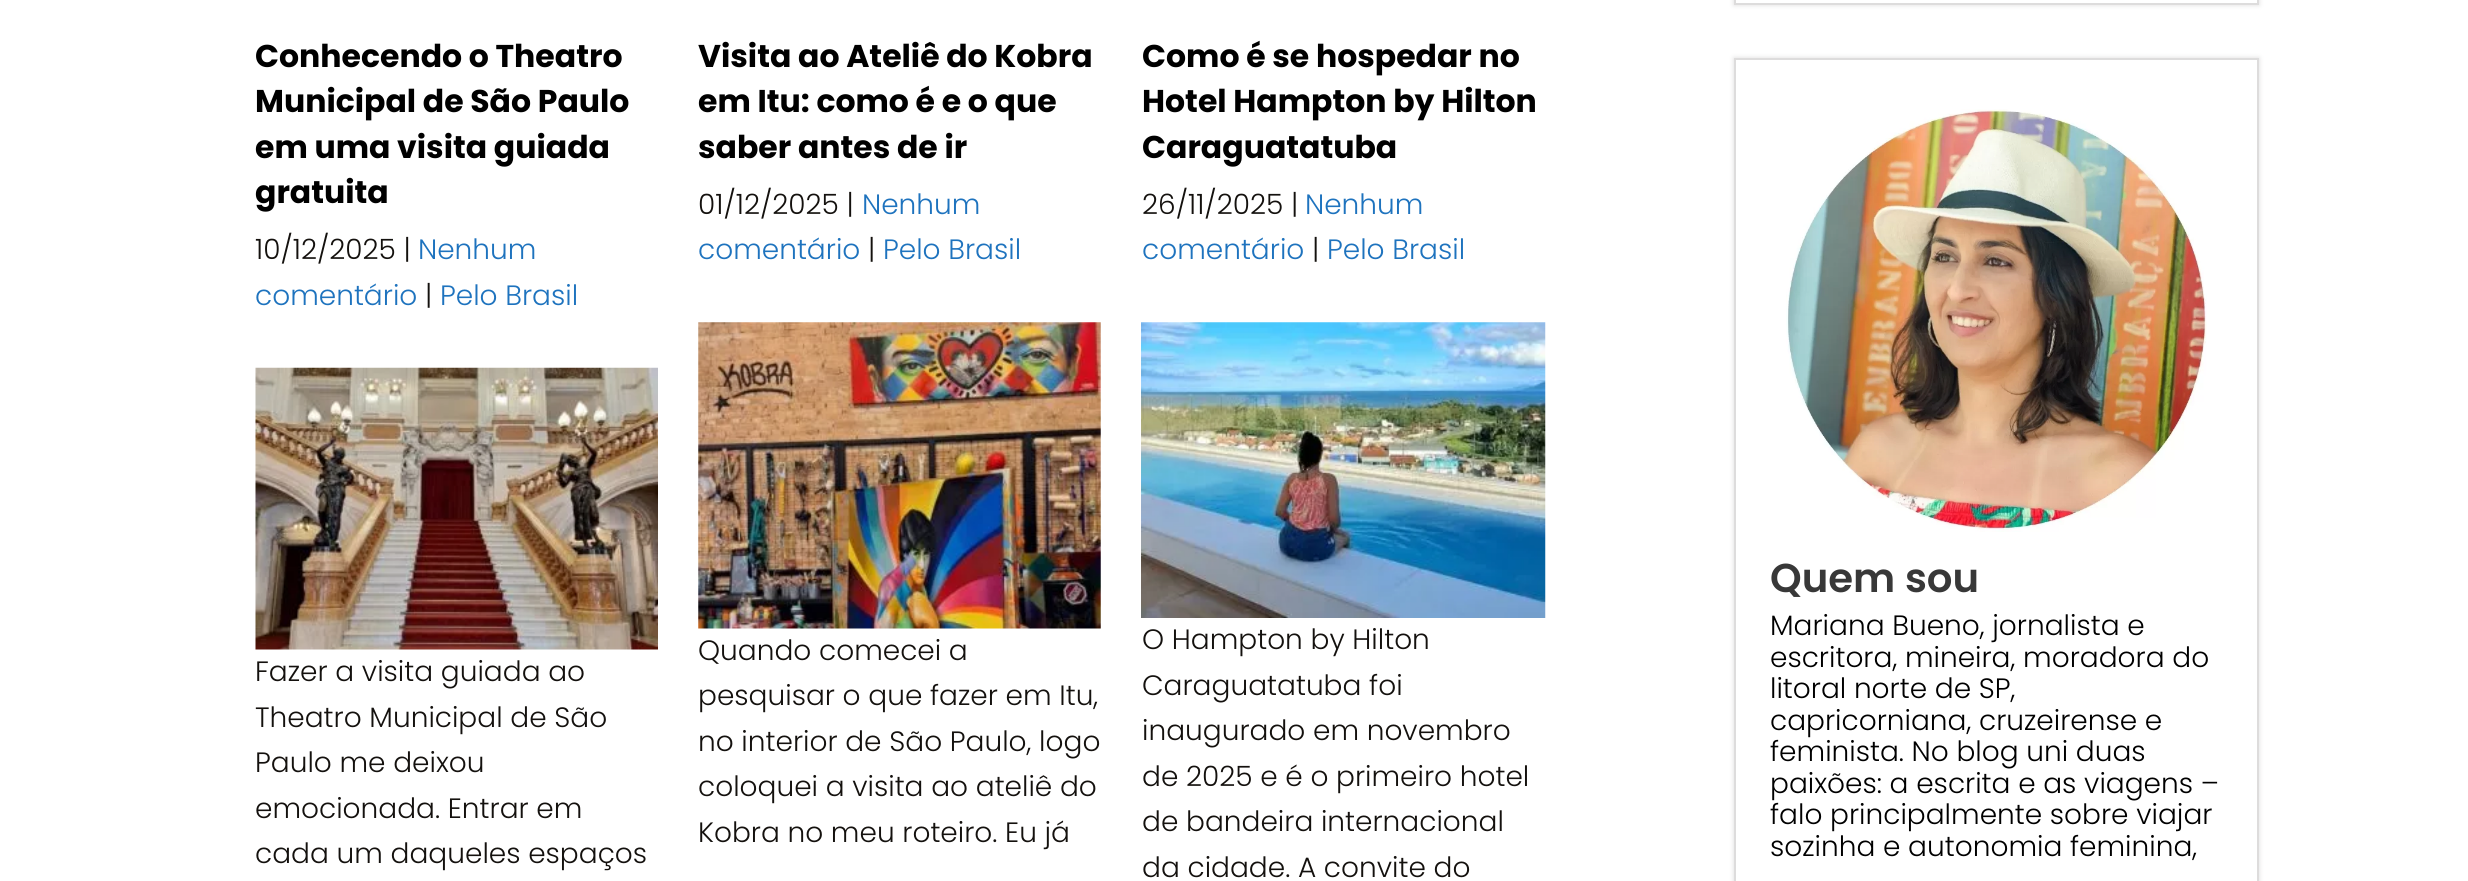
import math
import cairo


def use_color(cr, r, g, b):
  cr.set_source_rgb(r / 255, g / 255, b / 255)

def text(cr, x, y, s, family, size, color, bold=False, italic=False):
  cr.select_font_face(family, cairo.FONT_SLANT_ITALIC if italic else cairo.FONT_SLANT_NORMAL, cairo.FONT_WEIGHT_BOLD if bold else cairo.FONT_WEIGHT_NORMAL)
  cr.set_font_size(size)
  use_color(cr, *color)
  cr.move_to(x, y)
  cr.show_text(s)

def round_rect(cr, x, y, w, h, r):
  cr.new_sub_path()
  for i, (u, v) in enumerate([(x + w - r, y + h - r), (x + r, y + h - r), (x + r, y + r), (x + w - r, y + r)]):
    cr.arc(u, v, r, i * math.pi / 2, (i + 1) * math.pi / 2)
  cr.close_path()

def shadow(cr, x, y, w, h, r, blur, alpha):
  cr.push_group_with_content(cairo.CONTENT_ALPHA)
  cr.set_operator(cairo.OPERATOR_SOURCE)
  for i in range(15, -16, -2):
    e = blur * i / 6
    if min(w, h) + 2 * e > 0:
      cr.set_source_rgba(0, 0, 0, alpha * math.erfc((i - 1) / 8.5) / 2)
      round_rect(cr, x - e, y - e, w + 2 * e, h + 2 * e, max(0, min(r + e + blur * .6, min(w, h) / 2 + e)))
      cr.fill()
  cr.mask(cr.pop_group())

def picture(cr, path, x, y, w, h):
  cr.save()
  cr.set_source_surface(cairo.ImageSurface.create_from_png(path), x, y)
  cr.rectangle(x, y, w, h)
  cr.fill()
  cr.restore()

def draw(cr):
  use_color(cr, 255, 255, 255)
  cr.paint()
  picture(cr, "img_01.png", 255, 367, 403, 283)
  picture(cr, "img_02.png", 698, 322, 403, 307)
  picture(cr, "img_03.png", 1141, 322, 405, 296)
  use_color(cr, 221, 220, 220)
  shadow(cr, 1734, -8, 525, 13, 0, 2.5, 1)
  use_color(cr, 255, 255, 255)
  cr.rectangle(1735, -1, 523, 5)
  cr.fill_preserve()
  use_color(cr, 221, 220, 220)
  cr.stroke()
  use_color(cr, 221, 220, 220)
  shadow(cr, 1734, 58, 525, 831, 0, 2.5, 1)
  use_color(cr, 255, 255, 255)
  cr.rectangle(1735, 59, 523, 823)
  cr.fill_preserve()
  use_color(cr, 221, 220, 220)
  cr.stroke()
  picture(cr, "img_04.png", 1786, 109, 421, 423)
  text(cr, 255, 67, "Conhecendo o Theatro", "Poppins", 31.5, (0, 0, 0), bold=True)
  text(cr, 255, 112, "Municipal de São Paulo", "Poppins", 31.5, (0, 0, 0), bold=True)
  text(cr, 255, 158, "em uma visita guiada", "Poppins", 31.5, (0, 0, 0), bold=True)
  text(cr, 255, 203, "gratuita", "Poppins", 31.5, (0, 0, 0), bold=True)
  text(cr, 255, 259, "10/12/2025 |", "Poppins Light", 28, (20, 17, 14))
  text(cr, 418, 259, "Nenhum", "Poppins Light", 28, (30, 115, 190))
  text(cr, 255, 305, "comentário", "Poppins Light", 28, (30, 115, 190))
  text(cr, 425, 305, "|", "Poppins Light", 28, (20, 17, 14))
  text(cr, 440, 305, "Pelo Brasil", "Poppins Light", 28, (30, 115, 190))
  text(cr, 255, 681, "Fazer a visita guiada ao", "Poppins Light", 28, (20, 17, 14))
  text(cr, 255, 727, "Theatro Municipal de São", "Poppins Light", 28, (20, 17, 14))
  text(cr, 255, 772, "Paulo me deixou", "Poppins Light", 28, (20, 17, 14))
  text(cr, 255, 818, "emocionada. Entrar em", "Poppins Light", 28, (20, 17, 14))
  text(cr, 255, 863, "cada um daqueles espaços", "Poppins Light", 28, (20, 17, 14))
  text(cr, 698, 67, "Visita ao Ateliê do Kobra", "Poppins", 31.5, (0, 0, 0), bold=True)
  text(cr, 698, 112, "em Itu: como é e o que", "Poppins", 31.5, (0, 0, 0), bold=True)
  text(cr, 698, 158, "saber antes de ir", "Poppins", 31.5, (0, 0, 0), bold=True)
  text(cr, 698, 214, "01/12/2025 |", "Poppins Light", 28, (20, 17, 14))
  text(cr, 862, 214, "Nenhum", "Poppins Light", 28, (30, 115, 190))
  text(cr, 698, 259, "comentário", "Poppins Light", 28, (30, 115, 190))
  text(cr, 868, 259, "|", "Poppins Light", 28, (20, 17, 14))
  text(cr, 883, 259, "Pelo Brasil", "Poppins Light", 28, (30, 115, 190))
  text(cr, 698, 660, "Quando comecei a", "Poppins Light", 28, (20, 17, 14))
  text(cr, 698, 705, "pesquisar o que fazer em Itu,", "Poppins Light", 28, (20, 17, 14))
  text(cr, 698, 751, "no interior de São Paulo, logo", "Poppins Light", 28, (20, 17, 14))
  text(cr, 698, 796, "coloquei a visita ao ateliê do", "Poppins Light", 28, (20, 17, 14))
  text(cr, 698, 842, "Kobra no meu roteiro. Eu já", "Poppins Light", 28, (20, 17, 14))
  text(cr, 1142, 67, "Como é se hospedar no", "Poppins", 31.5, (0, 0, 0), bold=True)
  text(cr, 1142, 112, "Hotel Hampton by Hilton", "Poppins", 31.5, (0, 0, 0), bold=True)
  text(cr, 1142, 158, "Caraguatatuba", "Poppins", 31.5, (0, 0, 0), bold=True)
  text(cr, 1142, 214, "26/11/2025 |", "Poppins Light", 28, (20, 17, 14))
  text(cr, 1305, 214, "Nenhum", "Poppins Light", 28, (30, 115, 190))
  text(cr, 1142, 259, "comentário", "Poppins Light", 28, (30, 115, 190))
  text(cr, 1312, 259, "|", "Poppins Light", 28, (20, 17, 14))
  text(cr, 1327, 259, "Pelo Brasil", "Poppins Light", 28, (30, 115, 190))
  text(cr, 1142, 649, "O Hampton by Hilton", "Poppins Light", 28, (20, 17, 14))
  text(cr, 1142, 695, "Caraguatatuba foi", "Poppins Light", 28, (20, 17, 14))
  text(cr, 1142, 740, "inaugurado em novembro", "Poppins Light", 28, (20, 17, 14))
  text(cr, 1142, 786, "de 2025 e é o primeiro hotel", "Poppins Light", 28, (20, 17, 14))
  text(cr, 1142, 831, "de bandeira internacional", "Poppins Light", 28, (20, 17, 14))
  text(cr, 1142, 877, "da cidade. A convite do", "Poppins Light", 28, (20, 17, 14))
  text(cr, 1770, 592, "Quem sou", "Poppins SemiBold", 40.25, (56, 56, 56))
  text(cr, 1770, 635, "Mariana Bueno, jornalista e", "Poppins Light", 28, (0, 0, 0))
  text(cr, 1770, 667, "escritora, mineira, moradora do", "Poppins Light", 28, (0, 0, 0))
  text(cr, 1770, 698, "litoral norte de SP,", "Poppins Light", 28, (0, 0, 0))
  text(cr, 1770, 730, "capricorniana, cruzeirense e", "Poppins Light", 28, (0, 0, 0))
  text(cr, 1770, 761, "feminista. No blog uni duas", "Poppins Light", 28, (0, 0, 0))
  text(cr, 1770, 793, "paixões: a escrita e as viagens –", "Poppins Light", 28, (0, 0, 0))
  text(cr, 1770, 824, "falo principalmente sobre viajar", "Poppins Light", 28, (0, 0, 0))
  text(cr, 1770, 856, "sozinha e autonomia feminina,", "Poppins Light", 28, (0, 0, 0))


surface = cairo.ImageSurface(cairo.FORMAT_RGB24, 2468, 881)
cr = cairo.Context(surface)
options = cairo.FontOptions()
options.set_hint_metrics(cairo.HINT_METRICS_OFF)
options.set_hint_style(cairo.HINT_STYLE_NONE)
cr.set_font_options(options)
cr.set_miter_limit(4)
draw(cr)
surface.write_to_png("out.png")
